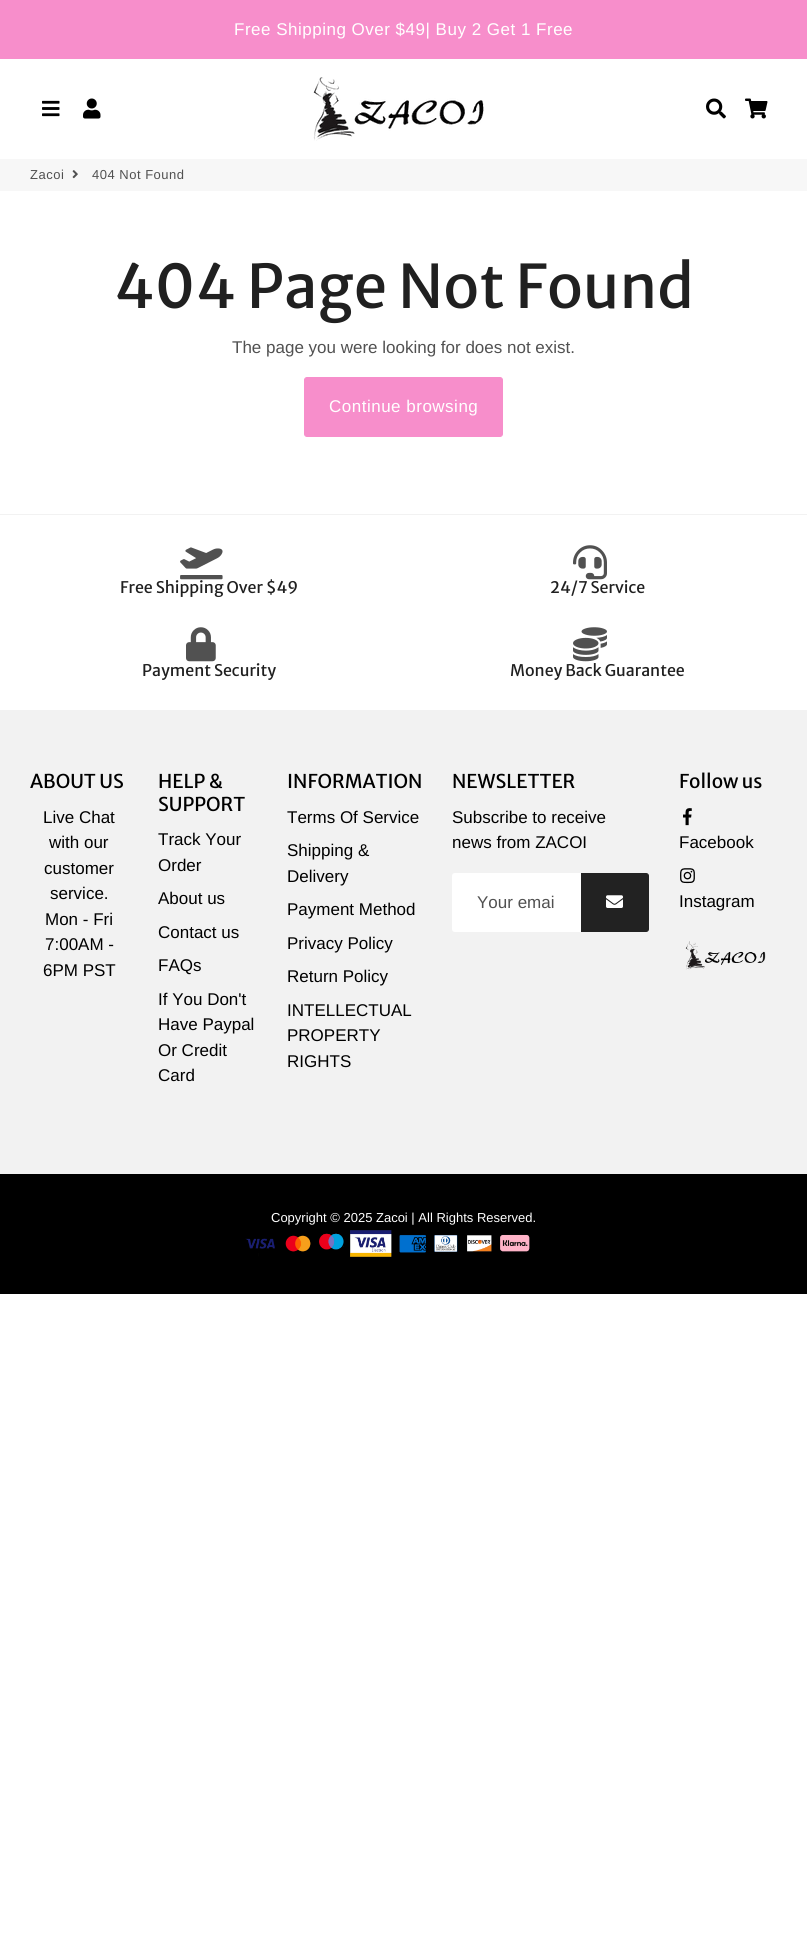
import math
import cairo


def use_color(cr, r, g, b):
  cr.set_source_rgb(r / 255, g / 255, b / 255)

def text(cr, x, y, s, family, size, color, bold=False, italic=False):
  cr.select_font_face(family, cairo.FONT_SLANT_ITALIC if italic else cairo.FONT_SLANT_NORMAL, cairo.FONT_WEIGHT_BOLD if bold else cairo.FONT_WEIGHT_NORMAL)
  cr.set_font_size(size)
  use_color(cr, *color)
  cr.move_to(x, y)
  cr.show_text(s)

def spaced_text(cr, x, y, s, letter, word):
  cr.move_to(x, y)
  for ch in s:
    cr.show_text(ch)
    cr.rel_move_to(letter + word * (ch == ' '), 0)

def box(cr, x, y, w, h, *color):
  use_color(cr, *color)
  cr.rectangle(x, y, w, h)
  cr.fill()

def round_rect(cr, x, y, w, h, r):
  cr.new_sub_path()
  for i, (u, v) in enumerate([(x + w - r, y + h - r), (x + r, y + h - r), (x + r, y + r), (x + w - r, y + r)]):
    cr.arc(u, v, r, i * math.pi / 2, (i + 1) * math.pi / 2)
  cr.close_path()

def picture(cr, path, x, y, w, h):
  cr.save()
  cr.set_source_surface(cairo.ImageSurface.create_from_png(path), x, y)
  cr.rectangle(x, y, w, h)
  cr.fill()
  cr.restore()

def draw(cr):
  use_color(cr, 255, 255, 255)
  cr.paint()
  box(cr, 0, 0, 807, 59, 247, 142, 203)
  picture(cr, "img_01.png", 42, 100, 18, 17)
  picture(cr, "img_02.png", 83, 98, 18, 21)
  picture(cr, "img_03.png", 313, 77, 171, 64)
  picture(cr, "img_04.png", 706, 98, 20, 21)
  picture(cr, "img_05.png", 745, 98, 23, 21)
  box(cr, 0, 159, 807, 32, 247, 247, 247)
  picture(cr, "img_06.png", 72, 170, 6, 9)
  use_color(cr, 247, 142, 203)
  round_rect(cr, 304.5, 377.5, 198, 59, 2.5)
  cr.fill_preserve()
  cr.set_line_width(1)
  cr.stroke()
  box(cr, 0, 514, 807, 1, 242, 242, 242)
  picture(cr, "img_07.png", 180, 547, 43, 33)
  picture(cr, "img_08.png", 573, 545, 34, 35)
  picture(cr, "img_09.png", 186, 627, 30, 35)
  picture(cr, "img_10.png", 573, 627, 34, 35)
  box(cr, 0, 710, 807, 464, 242, 242, 242)
  use_color(cr, 255, 255, 255)
  cr.new_path()
  cr.move_to(455, 873.5)
  cr.line_to(580.5, 873.5)
  cr.line_to(580.5, 931.5)
  cr.line_to(455, 931.5)
  cr.curve_to(453.5, 931.5, 452.5, 930.5, 452.5, 929)
  cr.line_to(452.5, 876)
  cr.curve_to(452.5, 874.5, 453.5, 873.5, 455, 873.5)
  cr.close_path()
  cr.fill_preserve()
  cr.stroke()
  use_color(cr, 34, 34, 34)
  cr.new_path()
  cr.move_to(581.5, 873.5)
  cr.line_to(646, 873.5)
  cr.curve_to(647.5, 873.5, 648.5, 874.5, 648.5, 876)
  cr.line_to(648.5, 929)
  cr.curve_to(648.5, 930.5, 647.5, 931.5, 646, 931.5)
  cr.line_to(581.5, 931.5)
  cr.close_path()
  cr.fill_preserve()
  cr.stroke()
  picture(cr, "img_11.png", 606, 895, 17, 13)
  picture(cr, "img_12.png", 683, 808, 9, 18)
  picture(cr, "img_13.png", 680, 868, 15, 16)
  picture(cr, "img_14.png", 685, 941, 81, 29)
  box(cr, 0, 1174, 807, 120, 0, 0, 0)
  picture(cr, "img_15.png", 245, 1230, 285, 27)
  cr.select_font_face("Liberation Sans")
  cr.set_font_size(17)
  use_color(cr, 255, 255, 255)
  spaced_text(cr, 234, 35, "Free Shipping Over $49| Buy 2 Get 1 Free", 0.5, 0)
  cr.set_font_size(13)
  use_color(cr, 81, 81, 81)
  spaced_text(cr, 30, 179, "Zacoi", 0.5, 0)
  spaced_text(cr, 92, 179, "404 Not Found", 0.5, 0)
  text(cr, 114, 308, "404 Page Not Found", "Merriweather Sans", 60, (32, 32, 32))
  text(cr, 232, 353, "The page you were looking for does not exist.", "Liberation Sans", 17, (81, 81, 81))
  use_color(cr, 255, 255, 255)
  spaced_text(cr, 329, 412, "Continue browsing", 0.5, 0)
  text(cr, 120, 593, "Free Shipping Over $49", "Merriweather Sans", 16, (32, 32, 32))
  text(cr, 550, 593, "24/7 Service", "Merriweather Sans", 16, (32, 32, 32))
  text(cr, 142, 676, "Payment Security", "Merriweather Sans", 16, (32, 32, 32))
  text(cr, 510, 676, "Money Back Guarantee", "Merriweather Sans", 16, (32, 32, 32))
  text(cr, 30, 788, "ABOUT US", "Merriweather Sans", 19, (0, 0, 0))
  text(cr, 43, 823, "Live Chat", "Liberation Sans", 17, (0, 0, 0))
  text(cr, 49, 848, "with our", "Liberation Sans", 17, (0, 0, 0))
  text(cr, 44, 874, "customer", "Liberation Sans", 17, (0, 0, 0))
  text(cr, 50, 899, "service.", "Liberation Sans", 17, (0, 0, 0))
  text(cr, 45, 925, "Mon - Fri", "Liberation Sans", 17, (0, 0, 0))
  text(cr, 45, 950, "7:00AM -", "Liberation Sans", 17, (0, 0, 0))
  text(cr, 43, 976, "6PM PST", "Liberation Sans", 17, (0, 0, 0))
  text(cr, 158, 788, "HELP &", "Merriweather Sans", 19, (0, 0, 0))
  text(cr, 158, 811, "SUPPORT", "Merriweather Sans", 19, (0, 0, 0))
  text(cr, 158, 845, "Track Your", "Liberation Sans", 17, (0, 0, 0))
  text(cr, 158, 871, "Order", "Liberation Sans", 17, (0, 0, 0))
  text(cr, 158, 904, "About us", "Liberation Sans", 17, (0, 0, 0))
  text(cr, 158, 938, "Contact us", "Liberation Sans", 17, (0, 0, 0))
  text(cr, 158, 971, "FAQs", "Liberation Sans", 17, (0, 0, 0))
  text(cr, 158, 1005, "If You Don't", "Liberation Sans", 17, (0, 0, 0))
  text(cr, 158, 1030, "Have Paypal", "Liberation Sans", 17, (0, 0, 0))
  text(cr, 158, 1056, "Or Credit", "Liberation Sans", 17, (0, 0, 0))
  text(cr, 158, 1081, "Card", "Liberation Sans", 17, (0, 0, 0))
  text(cr, 287, 788, "INFORMATION", "Merriweather Sans", 19, (0, 0, 0))
  text(cr, 287, 823, "Terms Of Service", "Liberation Sans", 17, (0, 0, 0))
  text(cr, 287, 856, "Shipping &", "Liberation Sans", 17, (0, 0, 0))
  text(cr, 287, 882, "Delivery", "Liberation Sans", 17, (0, 0, 0))
  text(cr, 287, 915, "Payment Method", "Liberation Sans", 17, (0, 0, 0))
  text(cr, 287, 949, "Privacy Policy", "Liberation Sans", 17, (0, 0, 0))
  text(cr, 287, 982, "Return Policy", "Liberation Sans", 17, (0, 0, 0))
  text(cr, 287, 1016, "INTELLECTUAL", "Liberation Sans", 17, (0, 0, 0))
  text(cr, 287, 1041, "PROPERTY", "Liberation Sans", 17, (0, 0, 0))
  text(cr, 287, 1067, "RIGHTS", "Liberation Sans", 17, (0, 0, 0))
  text(cr, 452, 788, "NEWSLETTER", "Merriweather Sans", 19, (0, 0, 0))
  text(cr, 452, 823, "Subscribe to receive", "Liberation Sans", 17, (0, 0, 0))
  text(cr, 452, 848, "news from ZACOI", "Liberation Sans", 17, (0, 0, 0))
  text(cr, 477, 908, "Your emai", "Liberation Sans", 17, (81, 81, 81))
  text(cr, 679, 788, "Follow us", "Merriweather Sans", 19, (0, 0, 0))
  text(cr, 679, 848, "Facebook", "Liberation Sans", 17, (0, 0, 0))
  text(cr, 679, 907, "Instagram", "Liberation Sans", 17, (0, 0, 0))
  text(cr, 271, 1222, "Copyright © 2025 Zacoi | All Rights Reserved.", "Liberation Sans", 13, (255, 255, 255))


surface = cairo.ImageSurface(cairo.FORMAT_RGB24, 807, 1959)
cr = cairo.Context(surface)
options = cairo.FontOptions()
options.set_hint_metrics(cairo.HINT_METRICS_OFF)
options.set_hint_style(cairo.HINT_STYLE_NONE)
cr.set_font_options(options)
cr.set_miter_limit(4)
draw(cr)
surface.write_to_png("out.png")
